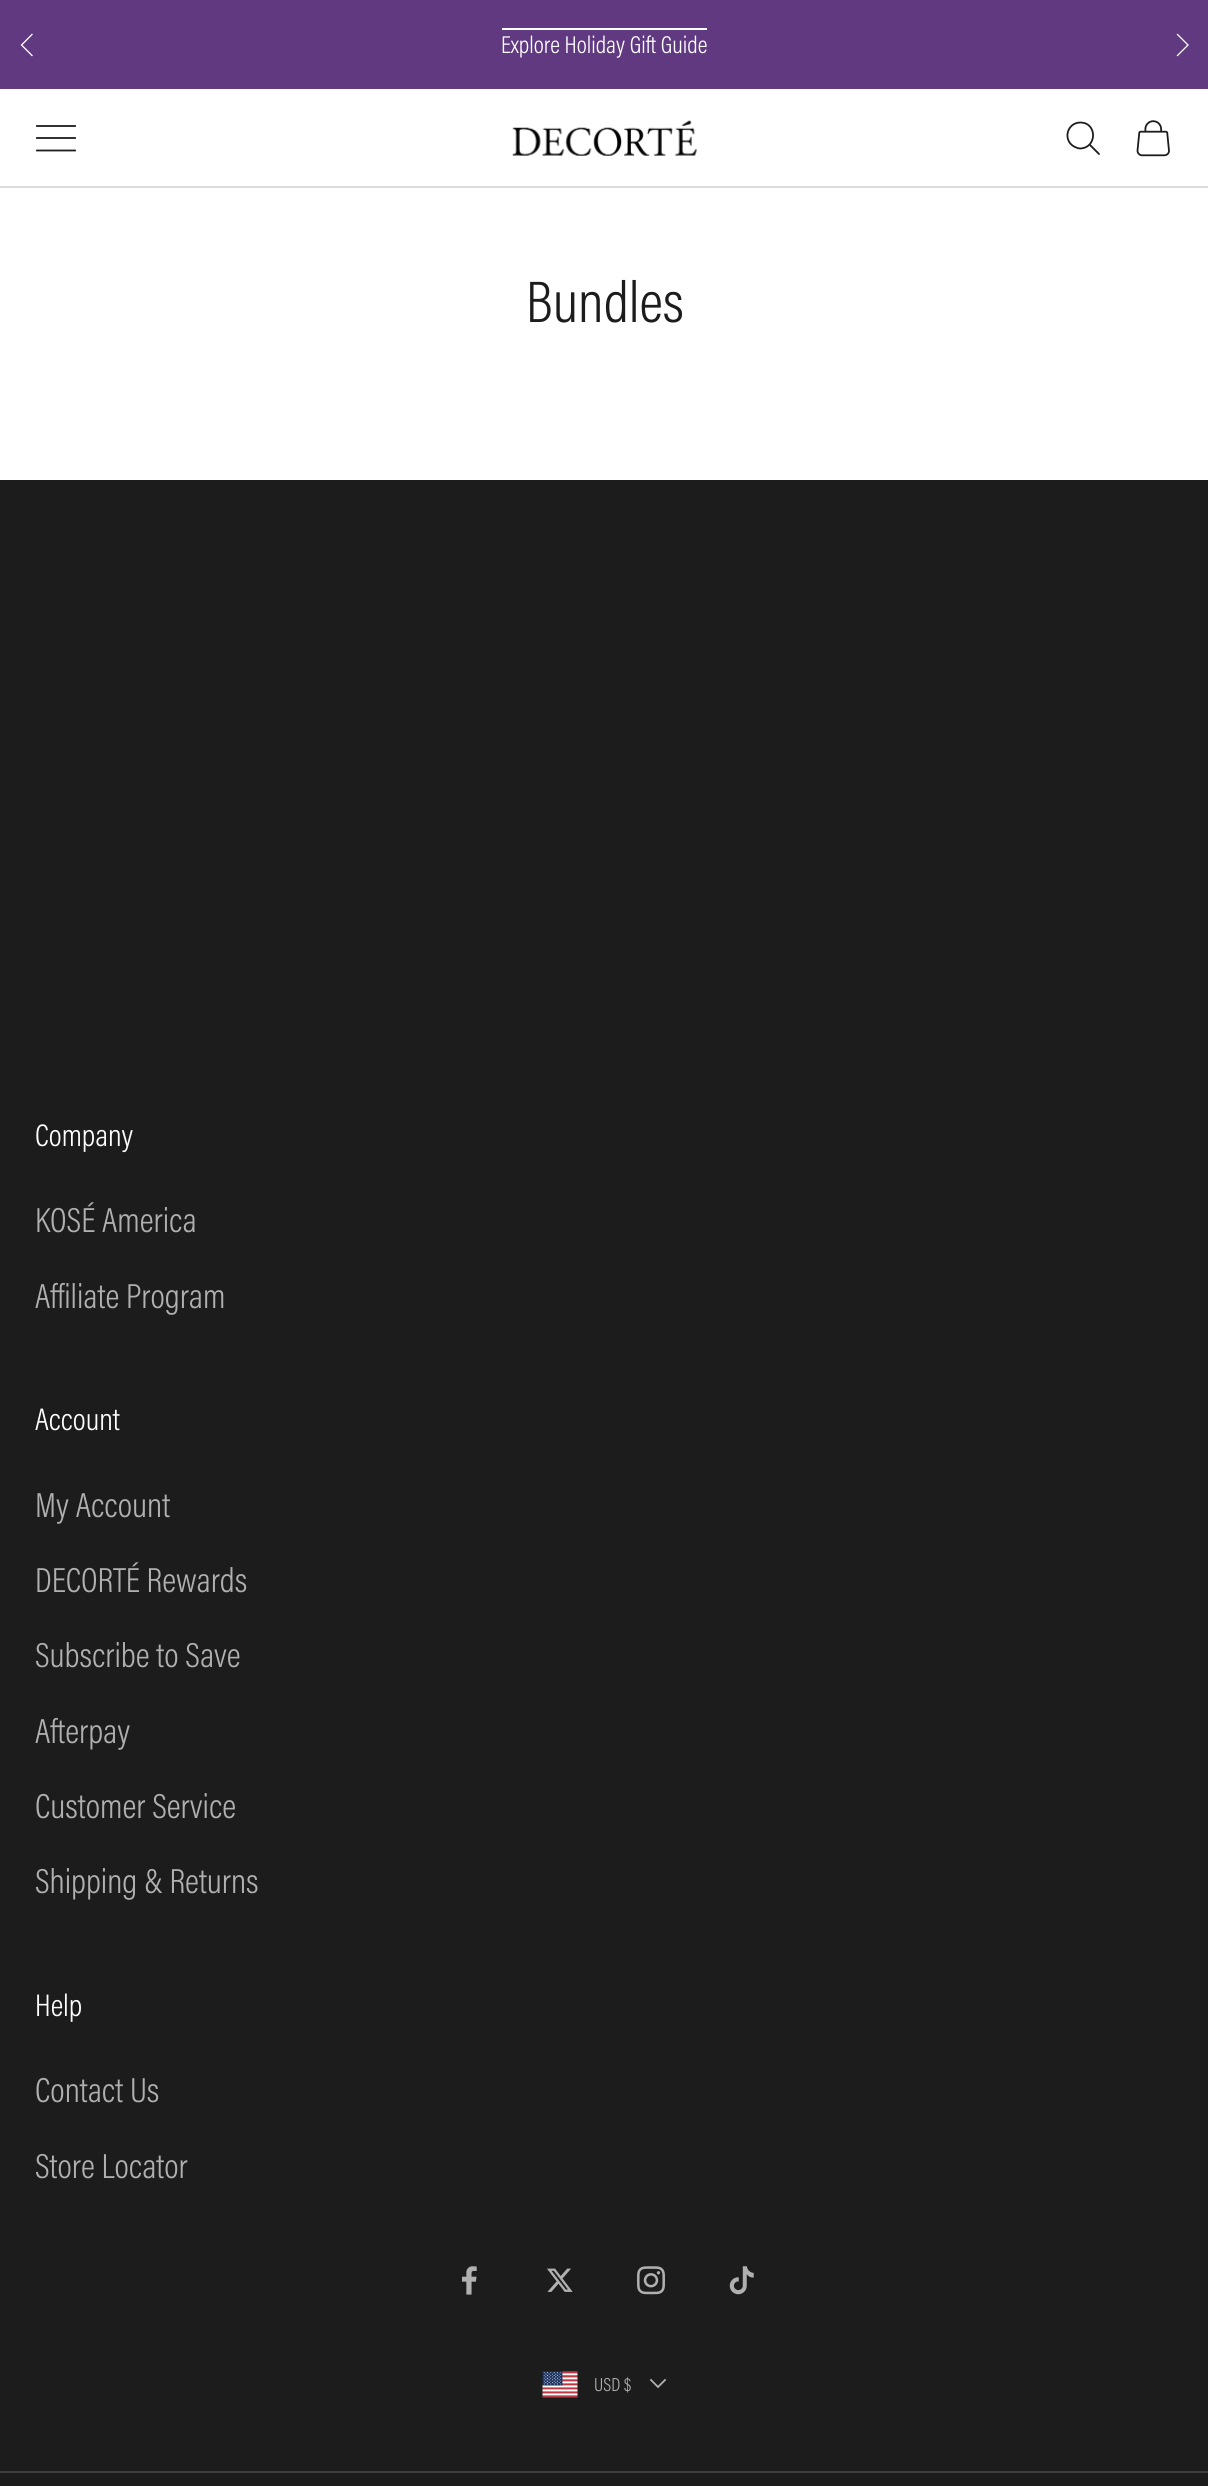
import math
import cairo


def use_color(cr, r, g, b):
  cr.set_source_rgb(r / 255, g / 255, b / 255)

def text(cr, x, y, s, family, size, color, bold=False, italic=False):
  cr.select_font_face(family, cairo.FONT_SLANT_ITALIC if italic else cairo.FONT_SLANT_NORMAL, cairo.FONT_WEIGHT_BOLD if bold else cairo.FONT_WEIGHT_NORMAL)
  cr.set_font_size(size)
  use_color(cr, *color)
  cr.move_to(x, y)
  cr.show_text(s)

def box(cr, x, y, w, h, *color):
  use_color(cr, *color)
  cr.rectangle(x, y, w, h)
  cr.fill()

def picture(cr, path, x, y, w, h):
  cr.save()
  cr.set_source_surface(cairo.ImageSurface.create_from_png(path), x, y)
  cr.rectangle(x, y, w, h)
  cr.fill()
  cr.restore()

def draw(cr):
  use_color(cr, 255, 255, 255)
  cr.paint()
  box(cr, 0, 0, 1208, 89, 96, 57, 129)
  cr.new_path()
  cr.move_to(32, 34.5)
  cr.line_to(21.5, 45)
  cr.line_to(32, 55.5)
  use_color(cr, 255, 255, 255)
  cr.set_line_width(1.3)
  cr.set_line_cap(cairo.LINE_CAP_SQUARE)
  cr.stroke()
  box(cr, 502, 28, 205, 2, 255, 255, 255)
  cr.new_path()
  cr.move_to(1177.5, 55.5)
  cr.line_to(1188, 45)
  cr.line_to(1177.5, 34.5)
  cr.stroke()
  box(cr, 0, 186, 1208, 2, 221, 221, 221)
  cr.new_path()
  cr.move_to(37, 150.5)
  cr.line_to(75, 150.5)
  cr.move_to(37, 138)
  cr.line_to(75, 138)
  cr.move_to(37, 126)
  cr.line_to(75, 126)
  use_color(cr, 28, 28, 28)
  cr.set_line_width(1.8)
  cr.stroke()
  picture(cr, "img_01.png", 512, 120, 185, 36)
  cr.new_path()
  cr.move_to(1080.5, 122.5)
  cr.curve_to(1067, 122.5, 1062.5, 140, 1074, 146.5)
  cr.curve_to(1076, 147.5, 1078, 148.5, 1080.5, 148.5)
  cr.curve_to(1097.5, 147.5, 1097, 122.5, 1080.5, 122.5)
  cr.close_path()
  cr.set_line_cap(cairo.LINE_CAP_BUTT)
  cr.stroke()
  cr.new_path()
  cr.move_to(1090, 145)
  cr.line_to(1099, 154)
  cr.set_line_cap(cairo.LINE_CAP_ROUND)
  cr.stroke()
  picture(cr, "img_02.png", 1136, 120, 34, 37)
  box(cr, 0, 480, 1208, 1991, 28, 28, 28)
  picture(cr, "img_03.png", 462, 2266, 15, 29)
  picture(cr, "img_04.png", 547, 2268, 26, 24)
  picture(cr, "img_05.png", 637, 2266, 28, 29)
  picture(cr, "img_06.png", 729, 2266, 25, 29)
  picture(cr, "img_07.png", 542, 2371, 36, 27)
  cr.new_path()
  cr.move_to(651, 2380)
  cr.line_to(658, 2387)
  cr.line_to(665, 2380)
  use_color(cr, 176, 176, 176)
  cr.set_line_cap(cairo.LINE_CAP_SQUARE)
  cr.stroke()
  box(cr, 0, 2473, 1208, 13, 28, 28, 28)
  box(cr, 0, 2471, 1208, 2, 62, 62, 62)
  text(cr, 501, 53, "Explore Holiday Gift Guide", "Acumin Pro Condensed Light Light", 24.5, (255, 255, 255))
  text(cr, 526, 322, "Bundles", "Acumin Pro Condensed Light Light", 59, (28, 28, 28))
  text(cr, 35, 1146, "Company", "Acumin Pro Condensed Light Light", 31.5, (255, 255, 255))
  text(cr, 35, 1232, "KOSÉ America", "Acumin Pro Condensed Light Light", 35, (176, 176, 176))
  text(cr, 35, 1308, "Affiliate Program", "Acumin Pro Condensed Light Light", 35, (176, 176, 176))
  text(cr, 35, 1430, "Account", "Acumin Pro Condensed Light Light", 31.5, (255, 255, 255))
  text(cr, 35, 1517, "My Account", "Acumin Pro Condensed Light Light", 35, (176, 176, 176))
  text(cr, 35, 1592, "DECORTÉ Rewards", "Acumin Pro Condensed Light Light", 35, (176, 176, 176))
  text(cr, 35, 1667, "Subscribe to Save", "Acumin Pro Condensed Light Light", 35, (176, 176, 176))
  text(cr, 35, 1743, "Afterpay", "Acumin Pro Condensed Light Light", 35, (176, 176, 176))
  text(cr, 35, 1818, "Customer Service", "Acumin Pro Condensed Light Light", 35, (176, 176, 176))
  text(cr, 35, 1893, "Shipping & Returns", "Acumin Pro Condensed Light Light", 35, (176, 176, 176))
  text(cr, 35, 2016, "Help", "Acumin Pro Condensed Light Light", 31.5, (255, 255, 255))
  text(cr, 35, 2102, "Contact Us", "Acumin Pro Condensed Light Light", 35, (176, 176, 176))
  text(cr, 35, 2178, "Store Locator", "Acumin Pro Condensed Light Light", 35, (176, 176, 176))
  text(cr, 594, 2391, "USD $", "Acumin Pro Condensed Light Light", 19, (176, 176, 176))


surface = cairo.ImageSurface(cairo.FORMAT_RGB24, 1208, 2486)
cr = cairo.Context(surface)
options = cairo.FontOptions()
options.set_hint_metrics(cairo.HINT_METRICS_OFF)
options.set_hint_style(cairo.HINT_STYLE_NONE)
cr.set_font_options(options)
cr.set_miter_limit(4)
draw(cr)
surface.write_to_png("out.png")
